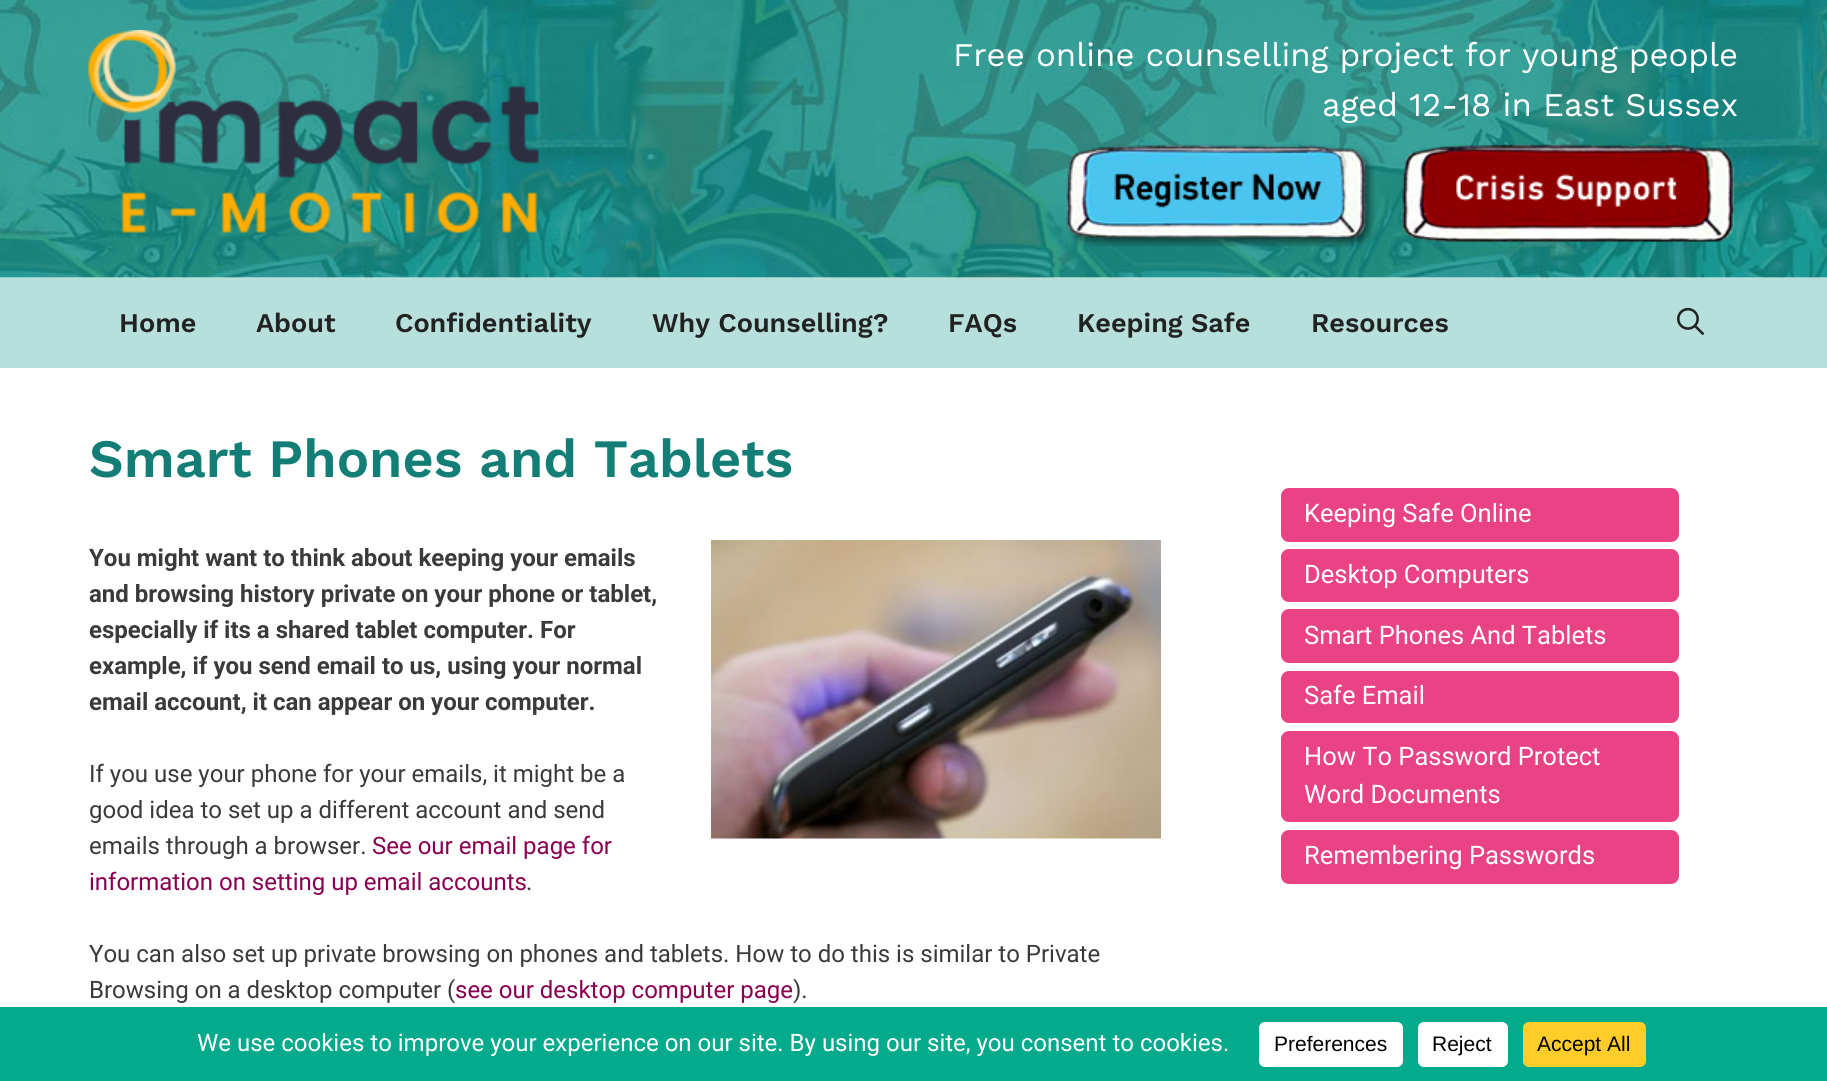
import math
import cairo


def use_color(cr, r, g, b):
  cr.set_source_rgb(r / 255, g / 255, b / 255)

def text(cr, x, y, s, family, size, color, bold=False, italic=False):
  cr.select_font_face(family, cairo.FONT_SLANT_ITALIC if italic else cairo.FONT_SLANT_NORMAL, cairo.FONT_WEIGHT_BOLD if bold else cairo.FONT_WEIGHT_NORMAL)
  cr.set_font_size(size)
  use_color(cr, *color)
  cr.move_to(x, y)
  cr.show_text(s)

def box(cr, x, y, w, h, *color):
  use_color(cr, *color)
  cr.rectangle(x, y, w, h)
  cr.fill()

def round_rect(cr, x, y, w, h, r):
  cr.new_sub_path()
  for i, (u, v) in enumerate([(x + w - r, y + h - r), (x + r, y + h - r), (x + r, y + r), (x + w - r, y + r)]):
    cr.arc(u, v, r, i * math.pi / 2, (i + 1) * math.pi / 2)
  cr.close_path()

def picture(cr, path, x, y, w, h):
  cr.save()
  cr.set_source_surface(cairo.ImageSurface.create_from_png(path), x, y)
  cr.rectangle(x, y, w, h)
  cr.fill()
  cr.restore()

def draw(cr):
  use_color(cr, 255, 255, 255)
  cr.paint()
  picture(cr, "img_01.png", 0, 0, 1827, 278)
  picture(cr, "img_02.png", 88, 30, 451, 203)
  picture(cr, "img_03.png", 1066, 144, 309, 103)
  picture(cr, "img_04.png", 1401, 144, 334, 98)
  box(cr, 0, 278, 1827, 90, 183, 223, 220)
  picture(cr, "img_05.png", 1677, 307, 27, 28)
  picture(cr, "img_06.png", 711, 540, 450, 299)
  use_color(cr, 233, 67, 133)
  round_rect(cr, 1281, 488, 398, 54, 8)
  cr.fill()
  round_rect(cr, 1281, 549, 398, 53, 8)
  cr.fill()
  round_rect(cr, 1281, 609, 398, 54, 8)
  cr.fill()
  round_rect(cr, 1281, 671, 398, 52, 8)
  cr.fill()
  round_rect(cr, 1281, 731, 398, 91, 8)
  cr.fill()
  round_rect(cr, 1281, 830, 398, 54, 8)
  cr.fill()
  box(cr, 0, 1007, 1827, 74, 4, 170, 140)
  use_color(cr, 255, 255, 255)
  round_rect(cr, 1259, 1022, 144, 45, 6)
  cr.fill()
  round_rect(cr, 1418, 1022, 90, 45, 6)
  cr.fill()
  use_color(cr, 255, 205, 42)
  round_rect(cr, 1523, 1022, 123, 45, 6)
  cr.fill()
  text(cr, 953, 66, "Free online counselling project for young people", "Work Sans", 33, (255, 255, 255))
  text(cr, 1322, 116, "aged 12-18 in East Sussex", "Work Sans", 33, (255, 255, 255))
  text(cr, 119, 332, "Home", "Work Sans SemiBold", 27, (34, 34, 34))
  text(cr, 256, 332, "About", "Work Sans SemiBold", 27, (34, 34, 34))
  text(cr, 395, 332, "Confidentiality", "Work Sans SemiBold", 27, (34, 34, 34))
  text(cr, 652, 332, "Why Counselling?", "Work Sans SemiBold", 27, (34, 34, 34))
  text(cr, 948, 332, "FAQs", "Work Sans SemiBold", 27, (34, 34, 34))
  text(cr, 1077, 332, "Keeping Safe", "Work Sans SemiBold", 27, (34, 34, 34))
  text(cr, 1311, 332, "Resources", "Work Sans SemiBold", 27, (34, 34, 34))
  text(cr, 89, 477, "Smart Phones and Tablets", "Work Sans SemiBold", 54, (19, 126, 118))
  text(cr, 89, 566, "You might want to think about keeping your emails", "Roboto", 24, (58, 58, 58), bold=True)
  text(cr, 89, 602, "and browsing history private on your phone or tablet,", "Roboto", 24, (58, 58, 58), bold=True)
  text(cr, 89, 638, "especially if its a shared tablet computer. For", "Roboto", 24, (58, 58, 58), bold=True)
  text(cr, 89, 674, "example, if you send email to us, using your normal", "Roboto", 24, (58, 58, 58), bold=True)
  text(cr, 89, 710, "email account, it can appear on your computer.", "Roboto", 24, (58, 58, 58), bold=True)
  text(cr, 89, 782, "If you use your phone for your emails, it might be a", "Roboto", 24, (58, 58, 58))
  text(cr, 89, 818, "good idea to set up a different account and send", "Roboto", 24, (58, 58, 58))
  text(cr, 89, 854, "emails through a browser.", "Roboto", 24, (58, 58, 58))
  text(cr, 372, 854, "See our email page for", "Roboto", 24, (138, 0, 80))
  text(cr, 89, 890, "information on setting up email accounts", "Roboto", 24, (138, 0, 80))
  text(cr, 526, 890, ".", "Roboto", 24, (58, 58, 58))
  text(cr, 89, 962, "You can also set up private browsing on phones and tablets. How to do this is similar to Private", "Roboto", 24, (58, 58, 58))
  text(cr, 89, 998, "Browsing on a desktop computer (", "Roboto", 24, (58, 58, 58))
  text(cr, 455, 998, "see our desktop computer page", "Roboto", 24, (138, 0, 80))
  text(cr, 793, 998, ").", "Roboto", 24, (58, 58, 58))
  text(cr, 1304, 522, "Keeping Safe Online", "Roboto", 25.5, (255, 255, 255))
  text(cr, 1304, 583, "Desktop Computers", "Roboto", 25.5, (255, 255, 255))
  text(cr, 1304, 644, "Smart Phones And Tablets", "Roboto", 25.5, (255, 255, 255))
  text(cr, 1304, 704, "Safe Email", "Roboto", 25.5, (255, 255, 255))
  text(cr, 1304, 765, "How To Password Protect", "Roboto", 25.5, (255, 255, 255))
  text(cr, 1304, 803, "Word Documents", "Roboto", 25.5, (255, 255, 255))
  text(cr, 1304, 864, "Remembering Passwords", "Roboto", 25.5, (255, 255, 255))
  text(cr, 197, 1051, "We use cookies to improve your experience on our site. By using our site, you consent to cookies.", "Roboto", 24, (255, 255, 255))
  text(cr, 1274, 1051, "Preferences", "Liberation Sans", 21, (0, 0, 0))
  text(cr, 1432, 1051, "Reject", "Liberation Sans", 21, (0, 0, 0))
  text(cr, 1537, 1051, "Accept All", "Liberation Sans", 21, (0, 0, 0))


surface = cairo.ImageSurface(cairo.FORMAT_RGB24, 1827, 1081)
cr = cairo.Context(surface)
options = cairo.FontOptions()
options.set_hint_metrics(cairo.HINT_METRICS_OFF)
options.set_hint_style(cairo.HINT_STYLE_NONE)
cr.set_font_options(options)
cr.set_miter_limit(4)
draw(cr)
surface.write_to_png("out.png")
